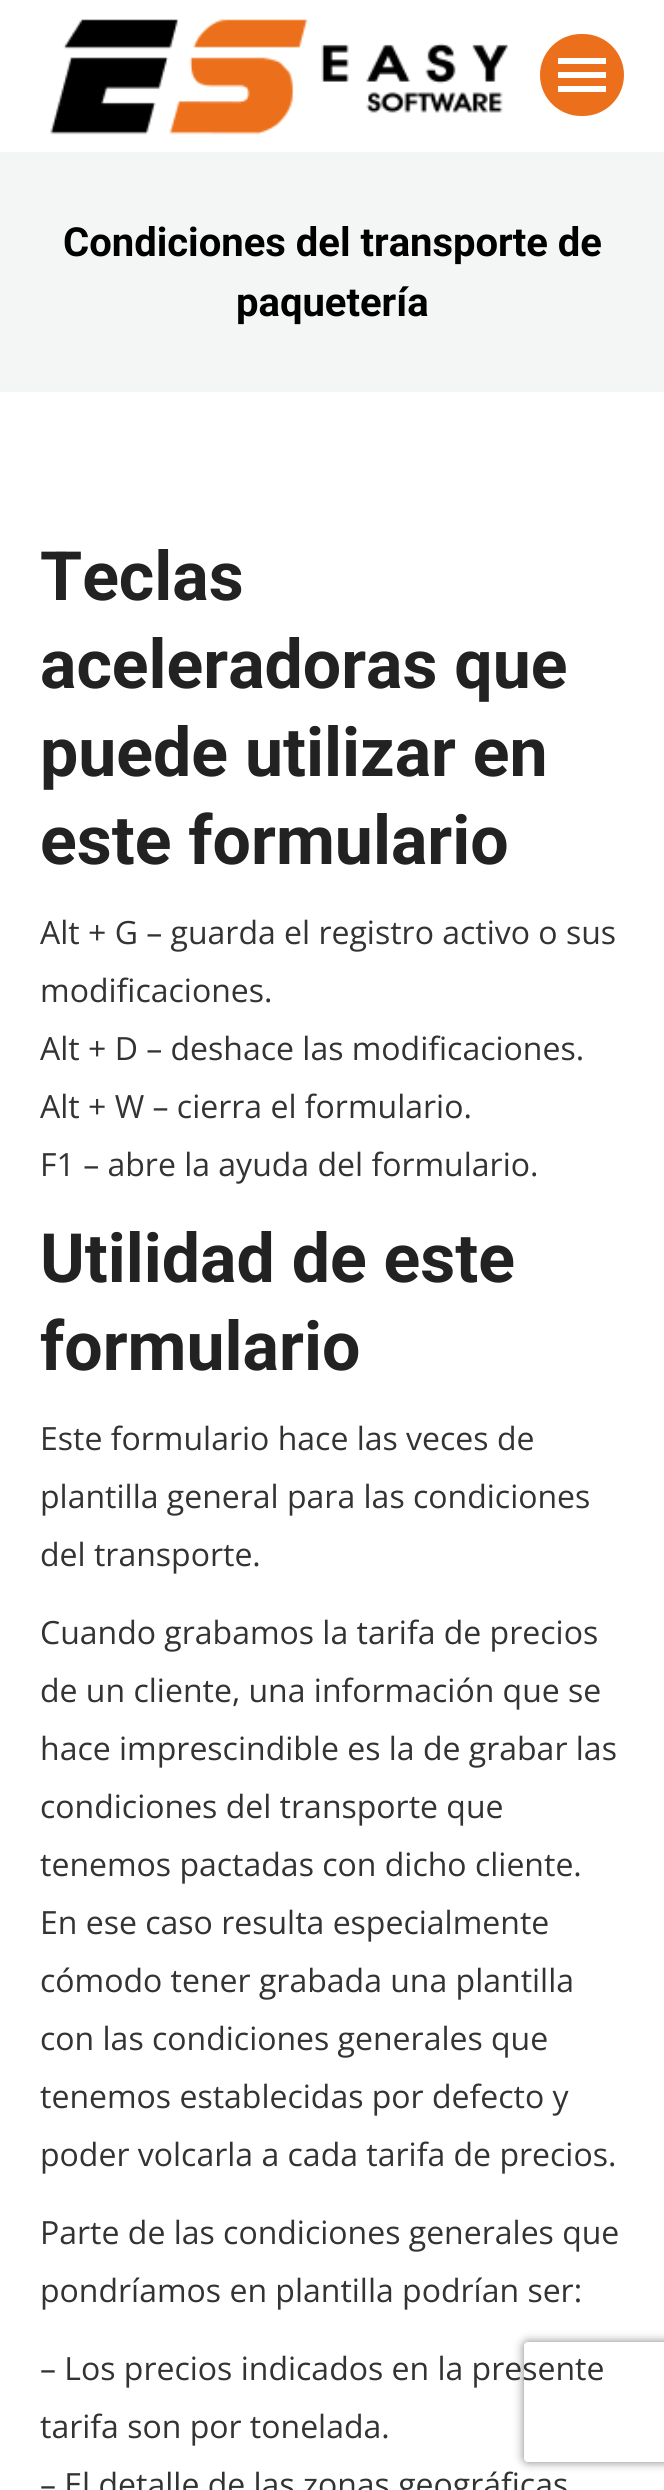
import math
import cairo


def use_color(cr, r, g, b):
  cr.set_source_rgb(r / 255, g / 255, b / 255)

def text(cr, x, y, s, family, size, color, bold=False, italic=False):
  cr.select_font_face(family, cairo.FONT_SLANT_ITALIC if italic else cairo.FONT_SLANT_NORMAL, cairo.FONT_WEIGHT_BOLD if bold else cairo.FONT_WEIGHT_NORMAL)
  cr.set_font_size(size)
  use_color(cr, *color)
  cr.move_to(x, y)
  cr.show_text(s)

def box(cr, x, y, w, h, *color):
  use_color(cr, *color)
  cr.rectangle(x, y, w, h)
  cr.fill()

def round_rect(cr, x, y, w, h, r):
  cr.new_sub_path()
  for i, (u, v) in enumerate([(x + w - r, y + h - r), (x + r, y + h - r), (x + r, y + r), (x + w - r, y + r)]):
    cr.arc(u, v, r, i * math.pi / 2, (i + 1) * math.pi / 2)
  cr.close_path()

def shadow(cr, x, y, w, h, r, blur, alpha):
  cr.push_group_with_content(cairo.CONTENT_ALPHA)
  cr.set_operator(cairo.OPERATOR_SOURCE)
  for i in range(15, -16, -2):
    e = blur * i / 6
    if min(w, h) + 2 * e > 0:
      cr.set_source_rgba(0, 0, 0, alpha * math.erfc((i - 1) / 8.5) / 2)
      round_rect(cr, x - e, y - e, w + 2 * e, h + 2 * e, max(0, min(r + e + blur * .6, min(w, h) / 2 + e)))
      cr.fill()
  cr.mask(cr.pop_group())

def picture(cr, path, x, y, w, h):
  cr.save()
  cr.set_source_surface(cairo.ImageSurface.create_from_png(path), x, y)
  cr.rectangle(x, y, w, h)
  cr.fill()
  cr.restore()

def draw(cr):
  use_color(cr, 255, 255, 255)
  cr.paint()
  picture(cr, "img_01.png", 50, 19, 458, 116)
  use_color(cr, 236, 112, 27)
  round_rect(cr, 540, 34, 84, 82, 41)
  cr.fill()
  box(cr, 558, 58, 48, 6, 255, 255, 255)
  box(cr, 558, 72, 48, 6, 255, 255, 255)
  box(cr, 558, 86, 48, 6, 255, 255, 255)
  box(cr, 0, 152, 664, 240, 244, 245, 245)
  cr.save()
  cr.set_fill_rule(cairo.FILL_RULE_EVEN_ODD)
  cr.new_path()
  cr.move_to(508, 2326)
  cr.line_to(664, 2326)
  cr.line_to(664, 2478)
  cr.line_to(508, 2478)
  cr.close_path()
  cr.move_to(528, 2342)
  cr.line_to(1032, 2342)
  cr.curve_to(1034, 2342, 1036, 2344, 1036, 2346)
  cr.line_to(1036, 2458)
  cr.curve_to(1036, 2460, 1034, 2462, 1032, 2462)
  cr.line_to(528, 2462)
  cr.curve_to(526, 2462, 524, 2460, 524, 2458)
  cr.line_to(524, 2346)
  cr.curve_to(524, 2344, 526, 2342, 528, 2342)
  cr.close_path()
  cr.clip()
  use_color(cr, 128, 128, 128)
  shadow(cr, 524, 2342, 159, 120, 4, 5, 1)
  cr.restore()
  text(cr, 63, 256, "Condiciones del transporte de", "Roboto", 40, (0, 0, 0), bold=True)
  text(cr, 236, 316, "paquetería", "Roboto", 40, (0, 0, 0), bold=True)
  text(cr, 40, 600, "Teclas", "Roboto", 68, (34, 34, 34), bold=True)
  text(cr, 40, 688, "aceleradoras que", "Roboto", 68, (34, 34, 34), bold=True)
  text(cr, 40, 776, "puede utilizar en", "Roboto", 68, (34, 34, 34), bold=True)
  text(cr, 40, 864, "este formulario", "Roboto", 68, (34, 34, 34), bold=True)
  text(cr, 40, 944, "Alt + G – guarda el registro activo o sus", "Open Sans", 32, (51, 51, 51))
  text(cr, 40, 1002, "modificaciones.", "Open Sans", 32, (51, 51, 51))
  text(cr, 40, 1060, "Alt + D – deshace las modificaciones.", "Open Sans", 32, (51, 51, 51))
  text(cr, 40, 1118, "Alt + W – cierra el formulario.", "Open Sans", 32, (51, 51, 51))
  text(cr, 40, 1176, "F1 – abre la ayuda del formulario.", "Open Sans", 32, (51, 51, 51))
  text(cr, 40, 1282, "Utilidad de este", "Roboto", 68, (34, 34, 34), bold=True)
  text(cr, 40, 1370, "formulario", "Roboto", 68, (34, 34, 34), bold=True)
  text(cr, 40, 1450, "Este formulario hace las veces de", "Open Sans", 32, (51, 51, 51))
  text(cr, 40, 1508, "plantilla general para las condiciones", "Open Sans", 32, (51, 51, 51))
  text(cr, 40, 1566, "del transporte.", "Open Sans", 32, (51, 51, 51))
  text(cr, 40, 1644, "Cuando grabamos la tarifa de precios", "Open Sans", 32, (51, 51, 51))
  text(cr, 40, 1702, "de un cliente, una información que se", "Open Sans", 32, (51, 51, 51))
  text(cr, 40, 1760, "hace imprescindible es la de grabar las", "Open Sans", 32, (51, 51, 51))
  text(cr, 40, 1818, "condiciones del transporte que", "Open Sans", 32, (51, 51, 51))
  text(cr, 40, 1876, "tenemos pactadas con dicho cliente.", "Open Sans", 32, (51, 51, 51))
  text(cr, 40, 1934, "En ese caso resulta especialmente", "Open Sans", 32, (51, 51, 51))
  text(cr, 40, 1992, "cómodo tener grabada una plantilla", "Open Sans", 32, (51, 51, 51))
  text(cr, 40, 2050, "con las condiciones generales que", "Open Sans", 32, (51, 51, 51))
  text(cr, 40, 2108, "tenemos establecidas por defecto y", "Open Sans", 32, (51, 51, 51))
  text(cr, 40, 2166, "poder volcarla a cada tarifa de precios.", "Open Sans", 32, (51, 51, 51))
  text(cr, 40, 2244, "Parte de las condiciones generales que", "Open Sans", 32, (51, 51, 51))
  text(cr, 40, 2302, "pondríamos en plantilla podrían ser:", "Open Sans", 32, (51, 51, 51))
  text(cr, 40, 2380, "– Los precios indicados en la presente", "Open Sans", 32, (51, 51, 51))
  text(cr, 40, 2438, "tarifa son por tonelada.", "Open Sans", 32, (51, 51, 51))
  text(cr, 40, 2496, "– El detalle de las zonas geográficas", "Open Sans", 32, (51, 51, 51))


surface = cairo.ImageSurface(cairo.FORMAT_RGB24, 664, 2490)
cr = cairo.Context(surface)
options = cairo.FontOptions()
options.set_hint_metrics(cairo.HINT_METRICS_OFF)
options.set_hint_style(cairo.HINT_STYLE_NONE)
cr.set_font_options(options)
cr.set_miter_limit(4)
draw(cr)
surface.write_to_png("out.png")
